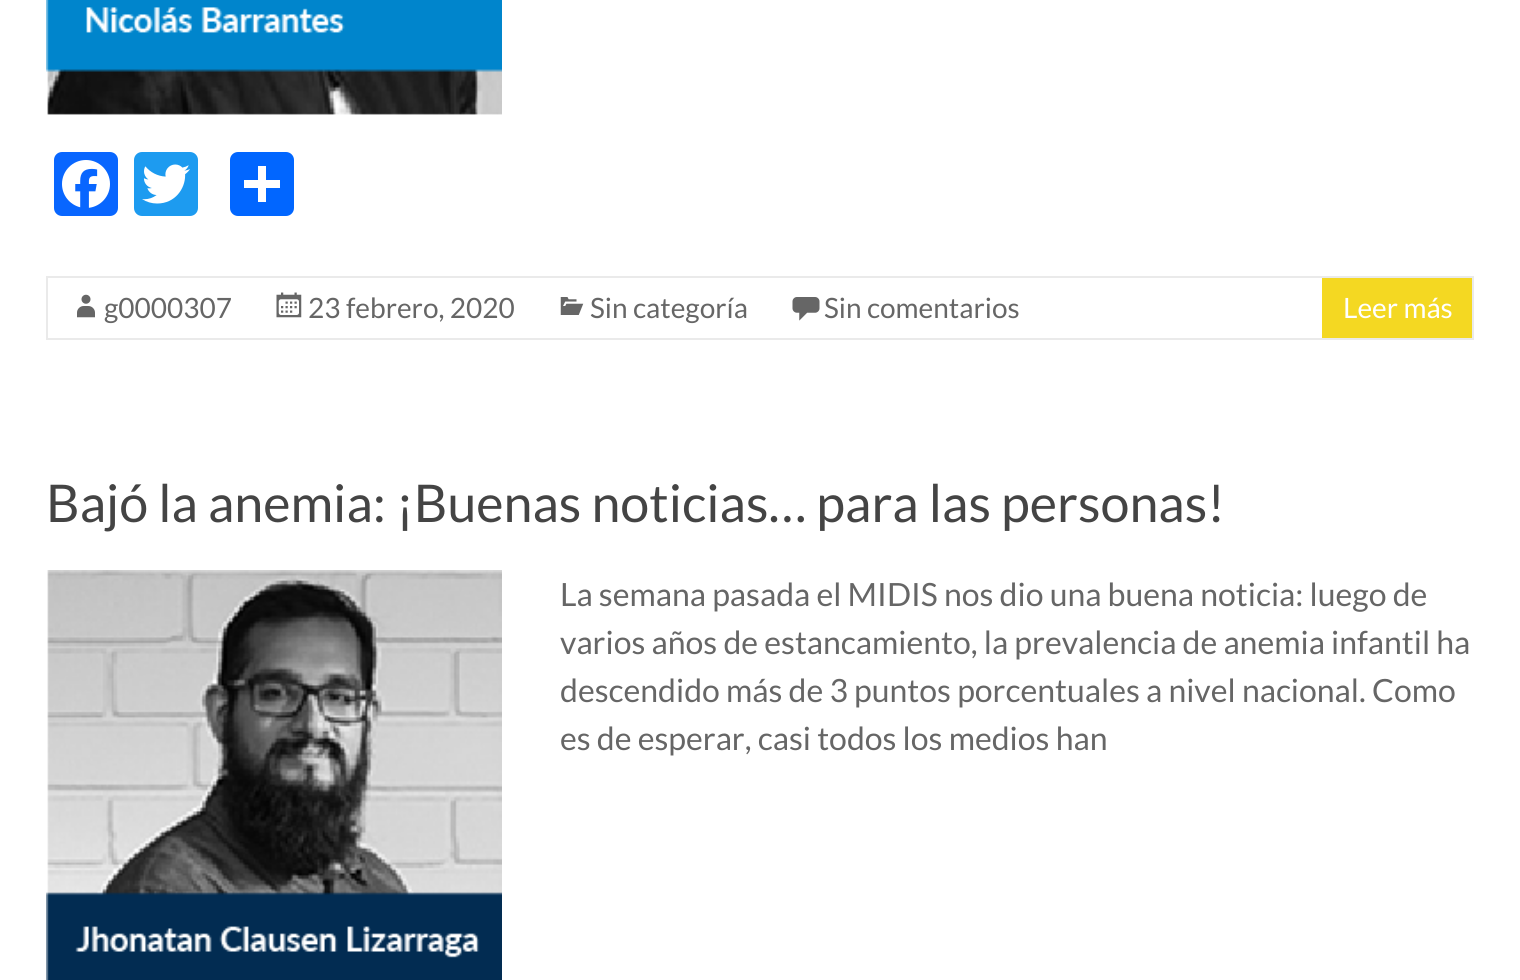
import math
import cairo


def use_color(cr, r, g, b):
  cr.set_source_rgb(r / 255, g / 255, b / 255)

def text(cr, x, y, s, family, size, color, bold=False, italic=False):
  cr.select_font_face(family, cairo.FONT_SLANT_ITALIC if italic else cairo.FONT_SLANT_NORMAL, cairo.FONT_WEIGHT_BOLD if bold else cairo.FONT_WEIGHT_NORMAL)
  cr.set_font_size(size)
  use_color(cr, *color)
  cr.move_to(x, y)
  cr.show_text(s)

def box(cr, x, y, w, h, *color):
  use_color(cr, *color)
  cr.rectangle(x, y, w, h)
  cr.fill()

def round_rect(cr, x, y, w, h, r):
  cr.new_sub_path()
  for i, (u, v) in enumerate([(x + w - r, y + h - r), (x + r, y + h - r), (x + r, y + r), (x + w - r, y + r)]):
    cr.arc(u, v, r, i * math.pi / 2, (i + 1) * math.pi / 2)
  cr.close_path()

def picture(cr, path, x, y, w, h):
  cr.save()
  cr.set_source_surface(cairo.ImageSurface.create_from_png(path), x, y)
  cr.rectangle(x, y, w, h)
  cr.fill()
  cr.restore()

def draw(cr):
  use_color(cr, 255, 255, 255)
  cr.paint()
  picture(cr, "img_01.png", 46, 0, 456, 115)
  use_color(cr, 8, 102, 255)
  round_rect(cr, 54, 152, 64, 64, 8)
  cr.fill()
  picture(cr, "img_02.png", 62, 160, 48, 48)
  use_color(cr, 29, 155, 240)
  round_rect(cr, 134, 152, 64, 64, 8)
  cr.fill()
  picture(cr, "img_03.png", 142, 164, 48, 40)
  use_color(cr, 1, 102, 255)
  round_rect(cr, 230, 152, 64, 64, 8)
  cr.fill()
  box(cr, 258, 166, 8, 36, 255, 255, 255)
  box(cr, 244, 180, 36, 8, 255, 255, 255)
  cr.rectangle(47, 277, 1426, 62)
  use_color(cr, 234, 234, 234)
  cr.stroke()
  picture(cr, "img_04.png", 77, 294, 18, 24)
  picture(cr, "img_05.png", 276, 292, 26, 26)
  picture(cr, "img_06.png", 560, 297, 24, 18)
  picture(cr, "img_07.png", 792, 297, 28, 24)
  box(cr, 1322, 278, 150, 60, 244, 216, 34)
  picture(cr, "img_08.png", 46, 570, 456, 410)
  text(cr, 104, 318, "g0000307", "Lato", 28, (102, 102, 102))
  text(cr, 308, 318, "23 febrero, 2020", "Lato", 28, (102, 102, 102))
  text(cr, 590, 318, "Sin categoría", "Lato", 28, (102, 102, 102))
  text(cr, 824, 318, "Sin comentarios", "Lato", 28, (102, 102, 102))
  text(cr, 1343, 318, "Leer más", "Lato", 28, (255, 255, 255))
  text(cr, 46, 522, "Bajó la anemia: ¡Buenas noticias… para las personas!", "Lato", 52, (68, 68, 68))
  text(cr, 560, 606, "La semana pasada el MIDIS nos dio una buena noticia: luego de", "Lato", 32, (102, 102, 102))
  text(cr, 560, 654, "varios años de estancamiento, la prevalencia de anemia infantil ha", "Lato", 32, (102, 102, 102))
  text(cr, 560, 702, "descendido más de 3 puntos porcentuales a nivel nacional. Como", "Lato", 32, (102, 102, 102))
  text(cr, 560, 750, "es de esperar, casi todos los medios han", "Lato", 32, (102, 102, 102))


surface = cairo.ImageSurface(cairo.FORMAT_RGB24, 1520, 980)
cr = cairo.Context(surface)
options = cairo.FontOptions()
options.set_hint_metrics(cairo.HINT_METRICS_OFF)
options.set_hint_style(cairo.HINT_STYLE_NONE)
cr.set_font_options(options)
cr.set_miter_limit(4)
draw(cr)
surface.write_to_png("out.png")
